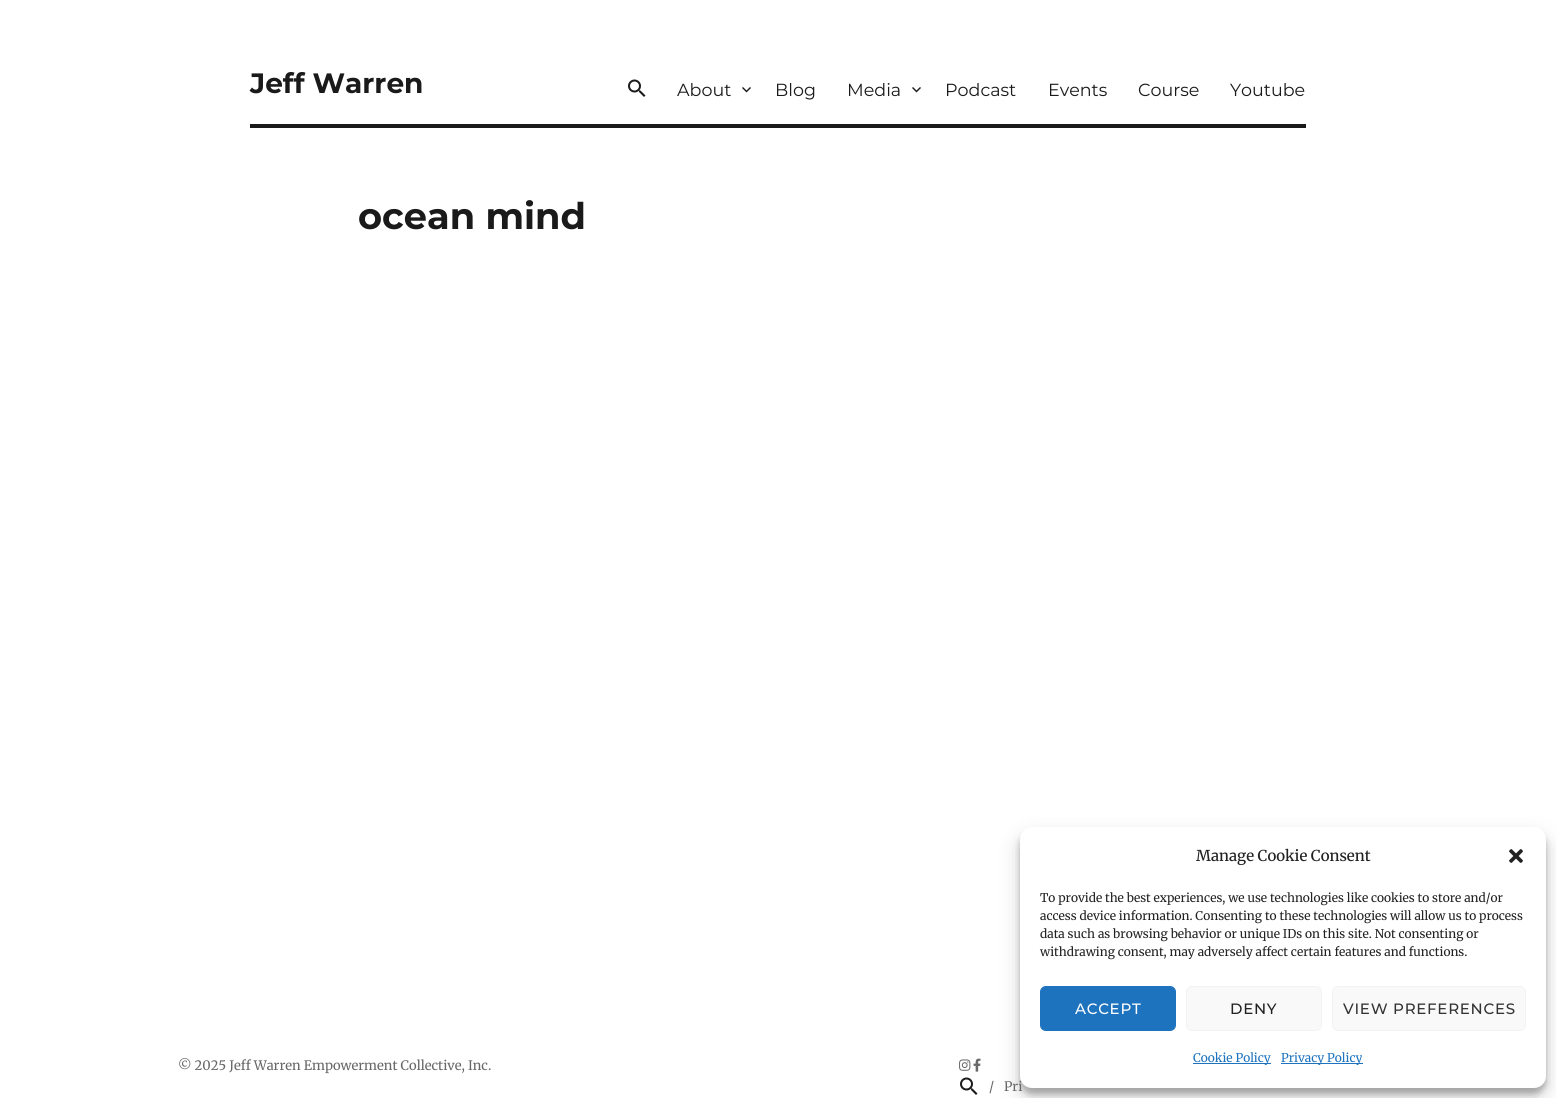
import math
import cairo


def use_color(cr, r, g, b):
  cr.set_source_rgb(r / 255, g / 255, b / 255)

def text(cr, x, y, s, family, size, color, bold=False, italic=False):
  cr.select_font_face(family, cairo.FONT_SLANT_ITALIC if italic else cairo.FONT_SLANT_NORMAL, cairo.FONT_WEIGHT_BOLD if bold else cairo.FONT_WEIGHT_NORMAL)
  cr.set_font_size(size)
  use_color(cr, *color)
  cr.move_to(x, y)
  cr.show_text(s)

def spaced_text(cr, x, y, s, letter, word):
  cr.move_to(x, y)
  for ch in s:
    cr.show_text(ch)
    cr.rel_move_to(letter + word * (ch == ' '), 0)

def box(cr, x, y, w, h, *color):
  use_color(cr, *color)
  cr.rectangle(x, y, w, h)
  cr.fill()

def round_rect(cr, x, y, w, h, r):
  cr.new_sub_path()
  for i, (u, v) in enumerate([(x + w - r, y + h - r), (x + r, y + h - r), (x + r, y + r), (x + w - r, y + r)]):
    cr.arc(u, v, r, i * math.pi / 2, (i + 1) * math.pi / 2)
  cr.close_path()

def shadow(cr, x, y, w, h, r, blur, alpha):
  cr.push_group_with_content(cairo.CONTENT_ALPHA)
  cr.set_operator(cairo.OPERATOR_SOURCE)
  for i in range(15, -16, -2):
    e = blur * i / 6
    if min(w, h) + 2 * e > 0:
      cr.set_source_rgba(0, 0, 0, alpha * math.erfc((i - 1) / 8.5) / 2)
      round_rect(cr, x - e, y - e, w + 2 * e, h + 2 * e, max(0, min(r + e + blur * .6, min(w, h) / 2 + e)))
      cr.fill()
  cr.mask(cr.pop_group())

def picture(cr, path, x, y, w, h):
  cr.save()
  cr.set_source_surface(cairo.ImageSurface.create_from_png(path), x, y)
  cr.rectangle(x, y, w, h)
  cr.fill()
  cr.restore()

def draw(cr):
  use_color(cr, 255, 255, 255)
  cr.paint()
  box(cr, 250, 124, 1056, 4, 26, 26, 26)
  picture(cr, "img_01.png", 628, 79, 18, 18)
  picture(cr, "img_02.png", 742, 87, 9, 6)
  picture(cr, "img_02.png", 912, 87, 9, 6)
  use_color(cr, 0, 0, 0)
  shadow(cr, 1020, 833, 526, 261, 12, 3, 0.23)
  shadow(cr, 1020, 837, 526, 261, 12, 10, 0.19)
  picture(cr, "img_04.png", 959, 1059, 12, 12)
  picture(cr, "img_05.png", 973, 1058, 8, 14)
  picture(cr, "img_01.png", 960, 1077, 18, 18)
  text(cr, 250, 93, "Jeff Warren", "Montserrat", 28, (26, 26, 26), bold=True)
  text(cr, 677, 96, "About", "Montserrat", 17.5, (26, 26, 26))
  text(cr, 775, 96, "Blog", "Montserrat", 17.5, (26, 26, 26))
  text(cr, 847, 96, "Media", "Montserrat", 17.5, (26, 26, 26))
  text(cr, 945, 96, "Podcast", "Montserrat", 17.5, (26, 26, 26))
  text(cr, 1048, 96, "Events", "Montserrat", 17.5, (26, 26, 26))
  text(cr, 1138, 96, "Course", "Montserrat", 17.5, (26, 26, 26))
  text(cr, 1230, 96, "Youtube", "Montserrat", 17.5, (26, 26, 26))
  text(cr, 358, 229, "ocean mind", "Montserrat", 36.75, (26, 26, 26), bold=True)
  text(cr, 178, 1070, "© 2025 Jeff Warren Empowerment Collective, Inc.", "Merriweather", 13, (104, 104, 104))
  text(cr, 989, 1091, "/", "Merriweather", 13, (104, 104, 104))
  text(cr, 1004, 1091, "Pri", "Merriweather", 13, (104, 104, 104))
  use_color(cr, 255, 255, 255)
  round_rect(cr, 1020, 827, 526, 261, 12)
  cr.fill()
  text(cr, 1040, 956, "withdrawing consent, may adversely affect certain features and functions.", "Merriweather", 12, (34, 34, 34))
  text(cr, 1040, 938, "data such as browsing behavior or unique IDs on this site. Not consenting or", "Merriweather", 12, (34, 34, 34))
  text(cr, 1040, 920, "access device information. Consenting to these technologies will allow us to process", "Merriweather", 12, (34, 34, 34))
  text(cr, 1040, 902, "To provide the best experiences, we use technologies like cookies to store and/or", "Merriweather", 12, (34, 34, 34))
  picture(cr, "img_03.png", 1509, 849, 14, 14)
  box(cr, 1281, 1063, 82, 1, 30, 115, 190)
  text(cr, 1281, 1062, "Privacy Policy", "Merriweather", 12, (30, 115, 190))
  box(cr, 1193, 1063, 78, 1, 30, 115, 190)
  text(cr, 1193, 1062, "Cookie Policy", "Merriweather", 12, (30, 115, 190))
  use_color(cr, 249, 249, 249)
  round_rect(cr, 1332.5, 986.5, 193, 44, 5.5)
  cr.fill_preserve()
  use_color(cr, 242, 242, 242)
  cr.set_line_width(1)
  cr.stroke()
  cr.select_font_face("Montserrat Medium")
  cr.set_font_size(15)
  use_color(cr, 51, 51, 51)
  spaced_text(cr, 1343, 1014, "VIEW PREFERENCES", 0.75, 0)
  use_color(cr, 249, 249, 249)
  round_rect(cr, 1186.5, 986.5, 135, 44, 5.5)
  cr.fill_preserve()
  use_color(cr, 242, 242, 242)
  cr.stroke()
  use_color(cr, 34, 34, 34)
  spaced_text(cr, 1230, 1014, "DENY", 0.75, 0)
  use_color(cr, 30, 115, 190)
  round_rect(cr, 1040.5, 986.5, 135, 44, 5.5)
  cr.fill_preserve()
  cr.stroke()
  use_color(cr, 255, 255, 255)
  spaced_text(cr, 1075, 1014, "ACCEPT", 0.75, 0)
  text(cr, 1196, 861, "Manage Cookie Consent", "Merriweather Medium", 15, (34, 34, 34))


surface = cairo.ImageSurface(cairo.FORMAT_RGB24, 1556, 1098)
cr = cairo.Context(surface)
options = cairo.FontOptions()
options.set_hint_metrics(cairo.HINT_METRICS_OFF)
options.set_hint_style(cairo.HINT_STYLE_NONE)
cr.set_font_options(options)
cr.set_miter_limit(4)
draw(cr)
surface.write_to_png("out.png")
